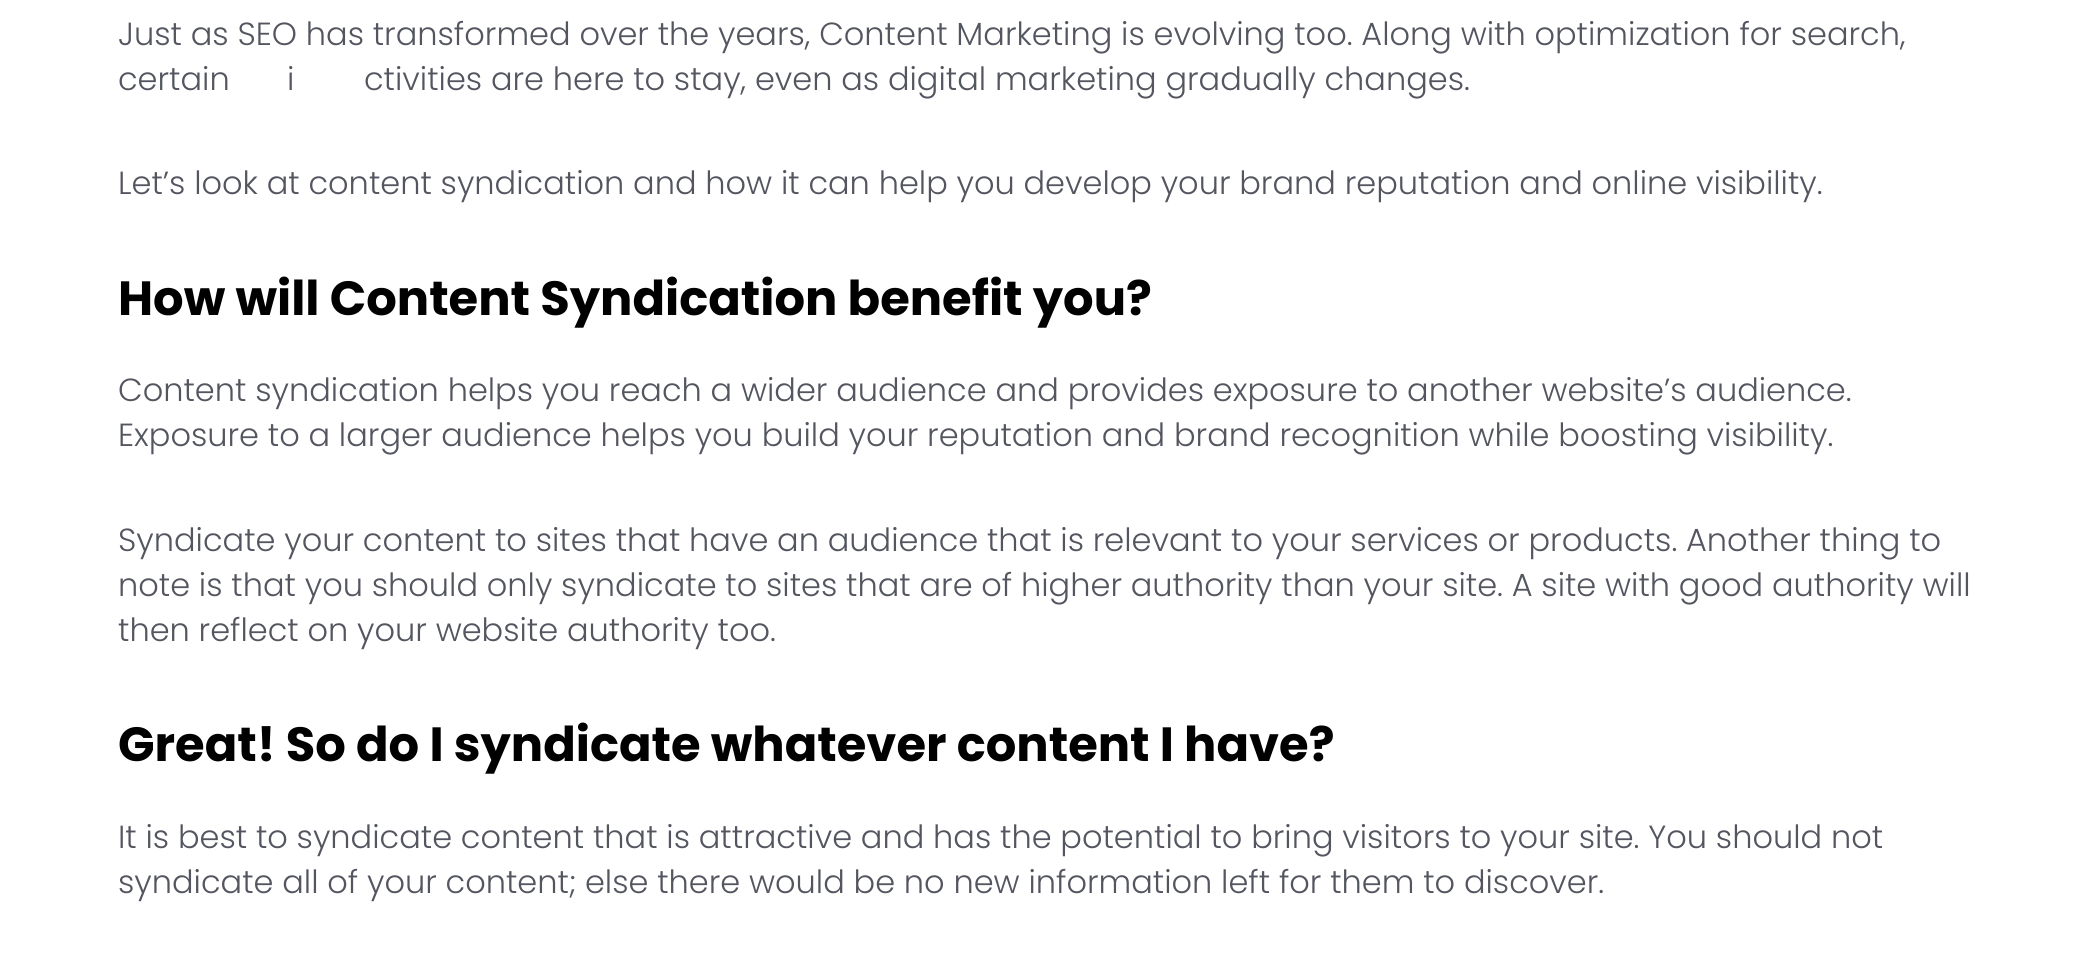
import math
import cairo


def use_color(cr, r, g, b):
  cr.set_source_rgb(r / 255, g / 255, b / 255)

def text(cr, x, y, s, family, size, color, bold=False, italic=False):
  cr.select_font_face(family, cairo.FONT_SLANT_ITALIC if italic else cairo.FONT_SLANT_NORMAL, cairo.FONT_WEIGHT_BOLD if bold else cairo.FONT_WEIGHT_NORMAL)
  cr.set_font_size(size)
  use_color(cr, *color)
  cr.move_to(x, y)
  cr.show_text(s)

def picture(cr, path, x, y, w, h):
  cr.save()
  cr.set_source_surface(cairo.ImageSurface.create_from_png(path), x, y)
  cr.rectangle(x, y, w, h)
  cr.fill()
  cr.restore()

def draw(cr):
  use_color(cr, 255, 255, 255)
  cr.paint()
  text(cr, 118, 45, "Just as SEO has transformed over the years, Content Marketing is evolving too. Along with optimization for search,", "Poppins Light", 32, (83, 85, 95))
  text(cr, 118, 90, "certain", "Poppins Light", 32, (83, 85, 95))
  text(cr, 287, 90, "i", "Poppins Light", 32, (83, 85, 95))
  text(cr, 364, 90, "ctivities are here to stay, even as digital marketing gradually changes.", "Poppins Light", 32, (83, 85, 95))
  text(cr, 118, 194, "Let’s look at content syndication and how it can help you develop your brand reputation and online visibility.", "Poppins Light", 32, (83, 85, 95))
  text(cr, 118, 315, "How will Content Syndication benefit you?", "Poppins", 48, (0, 0, 0), bold=True)
  text(cr, 118, 401, "Content syndication helps you reach a wider audience and provides exposure to another website’s audience.", "Poppins Light", 32, (83, 85, 95))
  text(cr, 118, 446, "Exposure to a larger audience helps you build your reputation and brand recognition while boosting visibility.", "Poppins Light", 32, (83, 85, 95))
  text(cr, 118, 551, "Syndicate your content to sites that have an audience that is relevant to your services or products. Another thing to", "Poppins Light", 32, (83, 85, 95))
  text(cr, 118, 596, "note is that you should only syndicate to sites that are of higher authority than your site. A site with good authority will", "Poppins Light", 32, (83, 85, 95))
  text(cr, 118, 641, "then reflect on your website authority too.", "Poppins Light", 32, (83, 85, 95))
  text(cr, 118, 761, "Great! So do I syndicate whatever content I have?", "Poppins", 48, (0, 0, 0), bold=True)
  text(cr, 118, 848, "It is best to syndicate content that is attractive and has the potential to bring visitors to your site. You should not", "Poppins Light", 32, (83, 85, 95))
  text(cr, 118, 893, "syndicate all of your content; else there would be no new information left for them to discover.", "Poppins Light", 32, (83, 85, 95))
  picture(cr, "img_01.png", 255, 66, 103, 25)


surface = cairo.ImageSurface(cairo.FORMAT_RGB24, 2096, 959)
cr = cairo.Context(surface)
options = cairo.FontOptions()
options.set_hint_metrics(cairo.HINT_METRICS_OFF)
options.set_hint_style(cairo.HINT_STYLE_NONE)
cr.set_font_options(options)
cr.set_miter_limit(4)
draw(cr)
surface.write_to_png("out.png")
